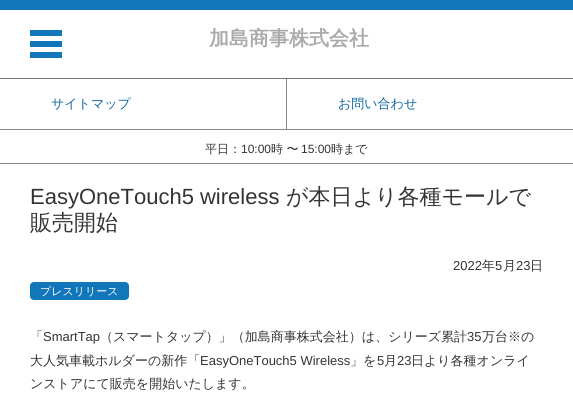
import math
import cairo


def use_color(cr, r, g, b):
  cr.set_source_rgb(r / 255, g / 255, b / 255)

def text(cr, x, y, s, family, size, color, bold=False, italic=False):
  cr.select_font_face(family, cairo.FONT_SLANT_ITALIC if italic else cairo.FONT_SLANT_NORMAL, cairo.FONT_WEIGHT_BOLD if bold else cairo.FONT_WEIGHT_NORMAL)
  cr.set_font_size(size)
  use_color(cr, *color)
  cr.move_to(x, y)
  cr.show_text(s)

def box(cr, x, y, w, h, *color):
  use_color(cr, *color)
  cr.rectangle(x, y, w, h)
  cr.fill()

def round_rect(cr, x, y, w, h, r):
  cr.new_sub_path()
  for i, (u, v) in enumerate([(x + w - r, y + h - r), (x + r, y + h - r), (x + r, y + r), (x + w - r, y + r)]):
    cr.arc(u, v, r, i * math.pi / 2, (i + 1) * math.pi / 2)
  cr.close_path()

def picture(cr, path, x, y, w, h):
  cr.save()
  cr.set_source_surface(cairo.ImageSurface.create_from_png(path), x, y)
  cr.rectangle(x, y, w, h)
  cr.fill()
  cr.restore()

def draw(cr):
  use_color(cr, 255, 255, 255)
  cr.paint()
  box(cr, 0, 0, 573, 10, 17, 119, 186)
  picture(cr, "img_01.png", 30, 30, 32, 28)
  box(cr, 0, 78, 573, 1, 119, 119, 119)
  box(cr, 0, 129, 573, 1, 136, 136, 136)
  box(cr, 286, 79, 1, 50, 136, 136, 136)
  box(cr, 0, 163, 573, 1, 136, 136, 136)
  use_color(cr, 17, 119, 186)
  round_rect(cr, 30, 282, 99, 18, 4)
  cr.fill()
  text(cr, 209, 45, "加島商事株式会社", "WenQuanYi Zen Hei", 20, (170, 170, 170), bold=True)
  text(cr, 51, 108, "サイトマップ", "WenQuanYi Zen Hei Medium", 13, (14, 103, 163))
  text(cr, 338, 108, "お問い合わせ", "WenQuanYi Zen Hei Medium", 13, (14, 103, 163))
  text(cr, 205, 153, "平日：", "WenQuanYi Zen Hei Medium", 12, (51, 51, 51))
  text(cr, 241, 153, "10:00", "Liberation Sans", 12, (51, 51, 51))
  text(cr, 271, 153, "時 〜", "WenQuanYi Zen Hei Medium", 12, (51, 51, 51))
  text(cr, 301, 153, "15:00", "Liberation Sans", 12, (51, 51, 51))
  text(cr, 331, 153, "時まで", "WenQuanYi Zen Hei Medium", 12, (51, 51, 51))
  text(cr, 30, 204, "EasyOneTouch5 wireless", "Liberation Sans", 22, (51, 51, 51))
  text(cr, 286, 204, "が本日より各種モールで", "WenQuanYi Zen Hei Medium", 22, (51, 51, 51))
  text(cr, 30, 230, "販売開始", "WenQuanYi Zen Hei Medium", 22, (51, 51, 51))
  text(cr, 453, 270, "2022", "Liberation Sans", 13, (51, 51, 51))
  text(cr, 482, 270, "年", "WenQuanYi Zen Hei Medium", 13, (51, 51, 51))
  text(cr, 495, 270, "5", "Liberation Sans", 13, (51, 51, 51))
  text(cr, 503, 270, "月", "WenQuanYi Zen Hei Medium", 13, (51, 51, 51))
  text(cr, 516, 270, "23", "Liberation Sans", 13, (51, 51, 51))
  text(cr, 530, 270, "日", "WenQuanYi Zen Hei Medium", 13, (51, 51, 51))
  text(cr, 40, 295, "プレスリリース", "WenQuanYi Zen Hei Medium", 11, (255, 255, 255))
  text(cr, 30, 341, "「", "WenQuanYi Zen Hei Medium", 13, (51, 51, 51))
  text(cr, 43, 341, "SmartTap", "Liberation Sans", 13, (51, 51, 51))
  text(cr, 100, 341, "（スマートタップ）」（加島商事株式会社）は、シリーズ累計", "WenQuanYi Zen Hei Medium", 13, (51, 51, 51))
  text(cr, 467, 341, "35", "Liberation Sans", 13, (51, 51, 51))
  text(cr, 482, 341, "万台※の", "WenQuanYi Zen Hei Medium", 13, (51, 51, 51))
  text(cr, 30, 365, "大人気車載ホルダーの新作「", "WenQuanYi Zen Hei Medium", 13, (51, 51, 51))
  text(cr, 200, 365, "EasyOneTouch5 Wireless", "Liberation Sans", 13, (51, 51, 51))
  text(cr, 350, 365, "」を", "WenQuanYi Zen Hei Medium", 13, (51, 51, 51))
  text(cr, 377, 365, "5", "Liberation Sans", 13, (51, 51, 51))
  text(cr, 384, 365, "月", "WenQuanYi Zen Hei Medium", 13, (51, 51, 51))
  text(cr, 397, 365, "23", "Liberation Sans", 13, (51, 51, 51))
  text(cr, 411, 365, "日より各種オンライ", "WenQuanYi Zen Hei Medium", 13, (51, 51, 51))
  text(cr, 30, 388, "ンストアにて販売を開始いたします。", "WenQuanYi Zen Hei Medium", 13, (51, 51, 51))


surface = cairo.ImageSurface(cairo.FORMAT_RGB24, 573, 396)
cr = cairo.Context(surface)
options = cairo.FontOptions()
options.set_hint_metrics(cairo.HINT_METRICS_OFF)
options.set_hint_style(cairo.HINT_STYLE_NONE)
cr.set_font_options(options)
cr.set_miter_limit(4)
draw(cr)
surface.write_to_png("out.png")
